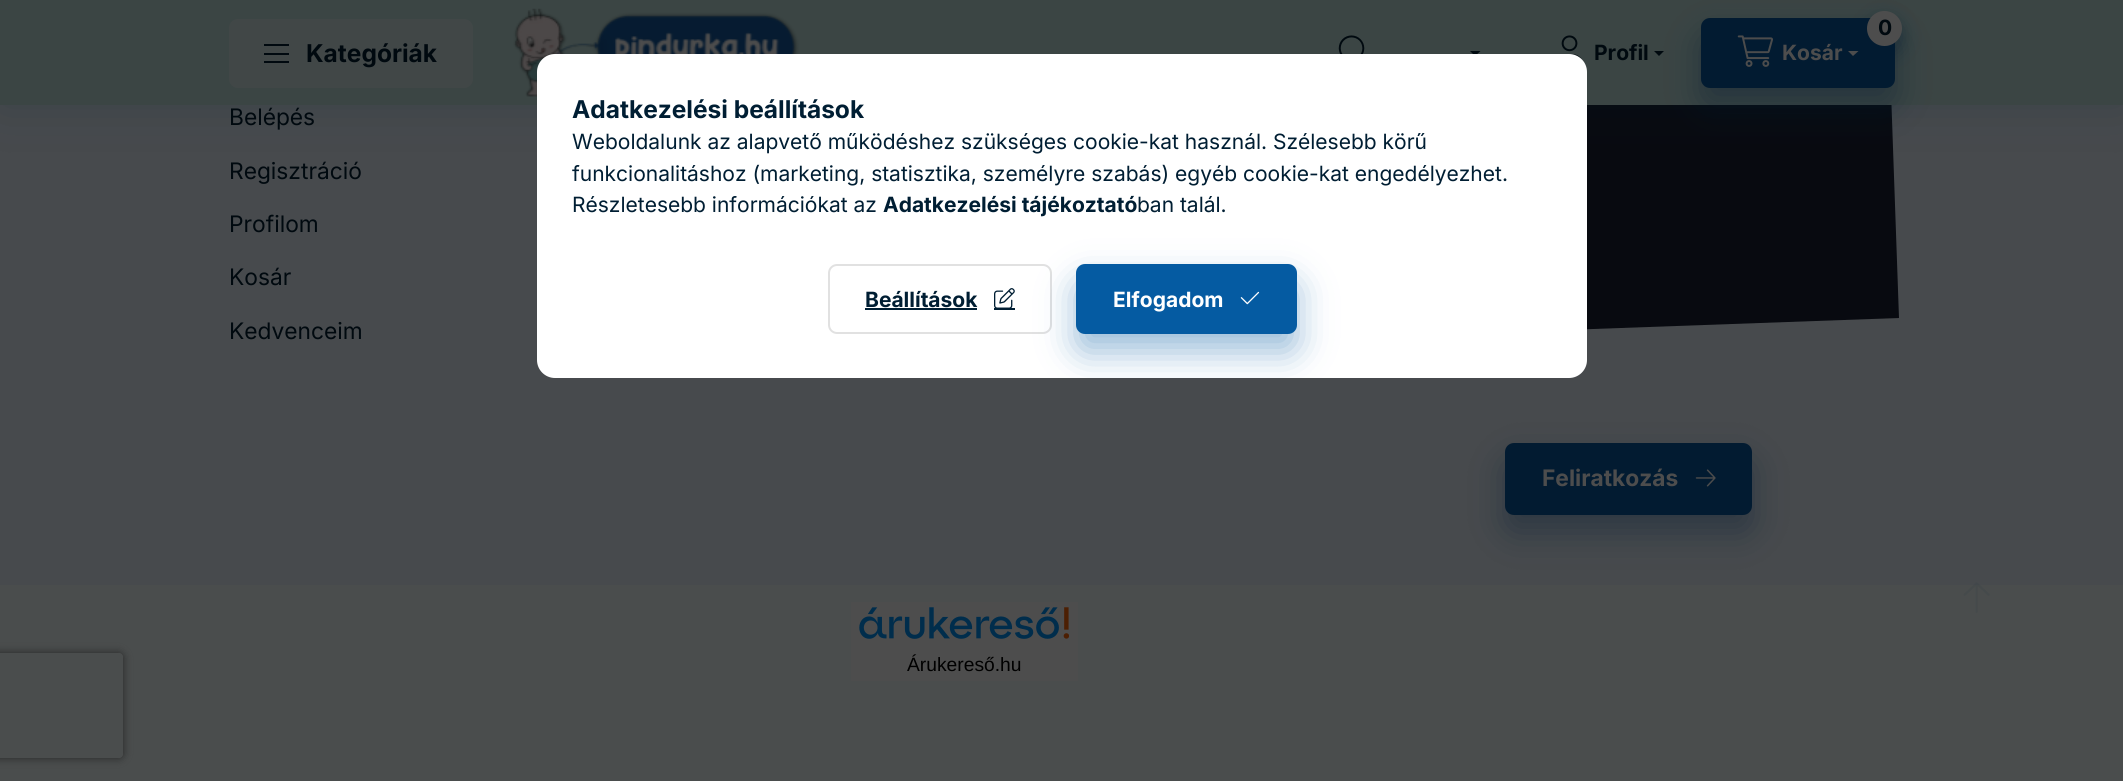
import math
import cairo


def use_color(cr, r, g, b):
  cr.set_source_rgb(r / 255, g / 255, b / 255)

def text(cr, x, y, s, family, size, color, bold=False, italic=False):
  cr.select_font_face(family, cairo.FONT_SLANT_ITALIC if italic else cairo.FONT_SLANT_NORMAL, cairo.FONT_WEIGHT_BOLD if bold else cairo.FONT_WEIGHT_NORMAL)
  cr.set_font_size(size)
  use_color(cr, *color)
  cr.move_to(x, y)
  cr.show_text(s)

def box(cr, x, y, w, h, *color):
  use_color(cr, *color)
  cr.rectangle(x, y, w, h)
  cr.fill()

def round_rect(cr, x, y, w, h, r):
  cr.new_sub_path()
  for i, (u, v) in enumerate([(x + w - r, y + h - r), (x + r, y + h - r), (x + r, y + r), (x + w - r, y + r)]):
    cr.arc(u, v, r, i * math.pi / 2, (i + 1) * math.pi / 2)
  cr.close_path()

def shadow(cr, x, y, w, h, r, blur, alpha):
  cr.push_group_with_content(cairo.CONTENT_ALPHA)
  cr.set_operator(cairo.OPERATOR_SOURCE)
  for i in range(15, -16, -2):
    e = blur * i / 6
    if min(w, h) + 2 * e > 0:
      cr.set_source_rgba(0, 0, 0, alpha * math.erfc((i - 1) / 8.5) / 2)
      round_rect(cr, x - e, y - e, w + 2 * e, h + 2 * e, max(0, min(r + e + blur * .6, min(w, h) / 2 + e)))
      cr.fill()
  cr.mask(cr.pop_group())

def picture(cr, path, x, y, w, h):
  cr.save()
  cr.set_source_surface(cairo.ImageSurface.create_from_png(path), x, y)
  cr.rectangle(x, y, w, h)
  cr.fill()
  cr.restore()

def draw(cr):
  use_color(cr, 74, 77, 77)
  cr.paint()
  box(cr, 0, 105, 2123, 480, 71, 74, 77)
  use_color(cr, 8, 10, 16)
  cr.new_path()
  cr.move_to(1501, 104)
  cr.line_to(1891, 91)
  cr.line_to(1899, 318)
  cr.line_to(1509, 332)
  cr.close_path()
  cr.fill()
  use_color(cr, 2, 27, 49)
  shadow(cr, 0, 0, 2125, 105, 0, 26, 0.2)
  box(cr, 0, 0, 2123, 105, 59, 69, 68)
  use_color(cr, 65, 71, 71)
  round_rect(cr, 229, 19, 244, 69, 9)
  cr.fill()
  box(cr, 264, 44, 25, 2, 0, 9, 15)
  box(cr, 264, 53, 25, 2, 0, 9, 15)
  box(cr, 264, 61, 25, 2, 0, 9, 15)
  picture(cr, "img_01.png", 513, 8, 286, 89)
  picture(cr, "img_02.png", 1338, 35, 27, 19)
  cr.new_path()
  cr.move_to(1470, 51)
  cr.line_to(1480.5, 51)
  cr.line_to(1475, 56)
  cr.close_path()
  cr.fill()
  picture(cr, "img_03.png", 1561, 35, 22, 26)
  use_color(cr, 2, 27, 49)
  shadow(cr, 1701, 35, 194, 70, 9, 17.5, 0.4)
  use_color(cr, 0, 9, 15)
  cr.new_path()
  cr.move_to(1654, 51)
  cr.line_to(1664, 51)
  cr.line_to(1659, 56)
  cr.close_path()
  cr.fill()
  use_color(cr, 2, 27, 49)
  round_rect(cr, 1701, 18, 194, 70, 9)
  cr.fill()
  use_color(cr, 2, 27, 49)
  shadow(cr, 1867, 19, 35, 35, 17.5, 9, 0.4)
  use_color(cr, 77, 77, 77)
  cr.arc(1884.5, 28.5, 17.5, 0, 2 * math.pi)
  cr.fill()
  picture(cr, "img_04.png", 1737, 35, 36, 32)
  cr.new_path()
  cr.move_to(1848, 51)
  cr.line_to(1858.5, 51)
  cr.line_to(1853, 56)
  cr.close_path()
  cr.fill()
  use_color(cr, 2, 27, 49)
  shadow(cr, 1505, 460, 247, 72, 9, 17.5, 0.4)
  use_color(cr, 2, 27, 49)
  round_rect(cr, 1506, 444, 245, 70, 8)
  cr.fill_preserve()
  cr.stroke()
  picture(cr, "img_05.png", 1695, 469, 21, 18)
  cr.save()
  cr.set_fill_rule(cairo.FILL_RULE_EVEN_ODD)
  cr.new_path()
  cr.move_to(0, 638)
  cr.line_to(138, 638)
  cr.line_to(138, 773)
  cr.line_to(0, 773)
  cr.close_path()
  cr.move_to(-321, 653)
  cr.line_to(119, 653)
  cr.curve_to(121, 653, 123, 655, 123, 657)
  cr.line_to(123, 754)
  cr.curve_to(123, 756, 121, 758, 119, 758)
  cr.line_to(-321, 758)
  cr.curve_to(-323, 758, -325, 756, -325, 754)
  cr.line_to(-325, 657)
  cr.curve_to(-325, 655, -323, 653, -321, 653)
  cr.close_path()
  cr.clip()
  use_color(cr, 38, 38, 38)
  shadow(cr, -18, 653, 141, 105, 4, 4.5, 1)
  cr.restore()
  box(cr, 851, 602, 227, 79, 77, 77, 77)
  picture(cr, "img_06.png", 859, 607, 210, 32)
  use_color(cr, 255, 255, 255)
  round_rect(cr, 537, 54, 1050, 324, 18)
  cr.fill()
  round_rect(cr, 829, 265, 222, 68, 8)
  use_color(cr, 225, 225, 225)
  cr.stroke()
  box(cr, 865, 308, 112, 2, 0, 30, 51)
  picture(cr, "img_07.png", 994, 288, 21, 20)
  box(cr, 994, 308, 21, 2, 0, 30, 51)
  cr.save()
  round_rect(cr, 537, 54, 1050, 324, 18)
  cr.clip()
  use_color(cr, 5, 91, 162)
  shadow(cr, 1076, 282, 221, 70, 9, 17.5, 0.4)
  cr.restore()
  use_color(cr, 5, 91, 162)
  round_rect(cr, 1077, 265, 219, 68, 8)
  cr.fill_preserve()
  cr.stroke()
  picture(cr, "img_08.png", 1240, 291, 20, 14)
  picture(cr, "img_09.png", 1963, 582, 27, 31)
  text(cr, 306, 62, "Kategóriák", "Inter", 24.5, (0, 9, 15), bold=True)
  text(cr, 1594, 60, "Profil", "Inter", 21, (0, 9, 15), bold=True)
  text(cr, 1878, 35, "0", "Inter", 21, (0, 9, 15), bold=True)
  text(cr, 1782, 60, "Kosár", "Inter", 21, (77, 77, 77), bold=True)
  text(cr, 229, 125, "Belépés", "Inter", 22.75, (0, 9, 15))
  text(cr, 229, 179, "Regisztráció", "Inter", 22.75, (0, 9, 15))
  text(cr, 229, 232, "Profilom", "Inter", 22.75, (0, 9, 15))
  text(cr, 229, 285, "Kosár", "Inter", 22.75, (0, 9, 15))
  text(cr, 229, 339, "Kedvenceim", "Inter", 22.75, (0, 9, 15))
  text(cr, 1542, 486, "Feliratkozás", "Inter", 22.75, (77, 77, 77), bold=True)
  text(cr, 907, 671, "Árukereső.hu", "Liberation Sans", 19.25, (0, 0, 0))
  text(cr, 572, 118, "Adatkezelési beállítások", "Inter", 24.5, (0, 30, 51), bold=True)
  text(cr, 572, 149, "Weboldalunk az alapvető működéshez szükséges cookie-kat használ. Szélesebb körű", "Inter", 21, (0, 30, 51))
  text(cr, 572, 181, "funkcionalitáshoz (marketing, statisztika, személyre szabás) egyéb cookie-kat engedélyezhet.", "Inter", 21, (0, 30, 51))
  text(cr, 572, 212, "Részletesebb információkat az", "Inter", 21, (0, 30, 51))
  text(cr, 883, 212, "Adatkezelési tájékoztató", "Inter", 21, (0, 30, 51), bold=True)
  text(cr, 1137, 212, "ban talál.", "Inter", 21, (0, 30, 51))
  text(cr, 865, 307, "Beállítások", "Inter", 21, (0, 30, 51), bold=True)
  text(cr, 1113, 307, "Elfogadom", "Inter", 21, (255, 255, 255), bold=True)


surface = cairo.ImageSurface(cairo.FORMAT_RGB24, 2123, 781)
cr = cairo.Context(surface)
options = cairo.FontOptions()
options.set_hint_metrics(cairo.HINT_METRICS_OFF)
options.set_hint_style(cairo.HINT_STYLE_NONE)
cr.set_font_options(options)
cr.set_miter_limit(4)
draw(cr)
surface.write_to_png("out.png")
